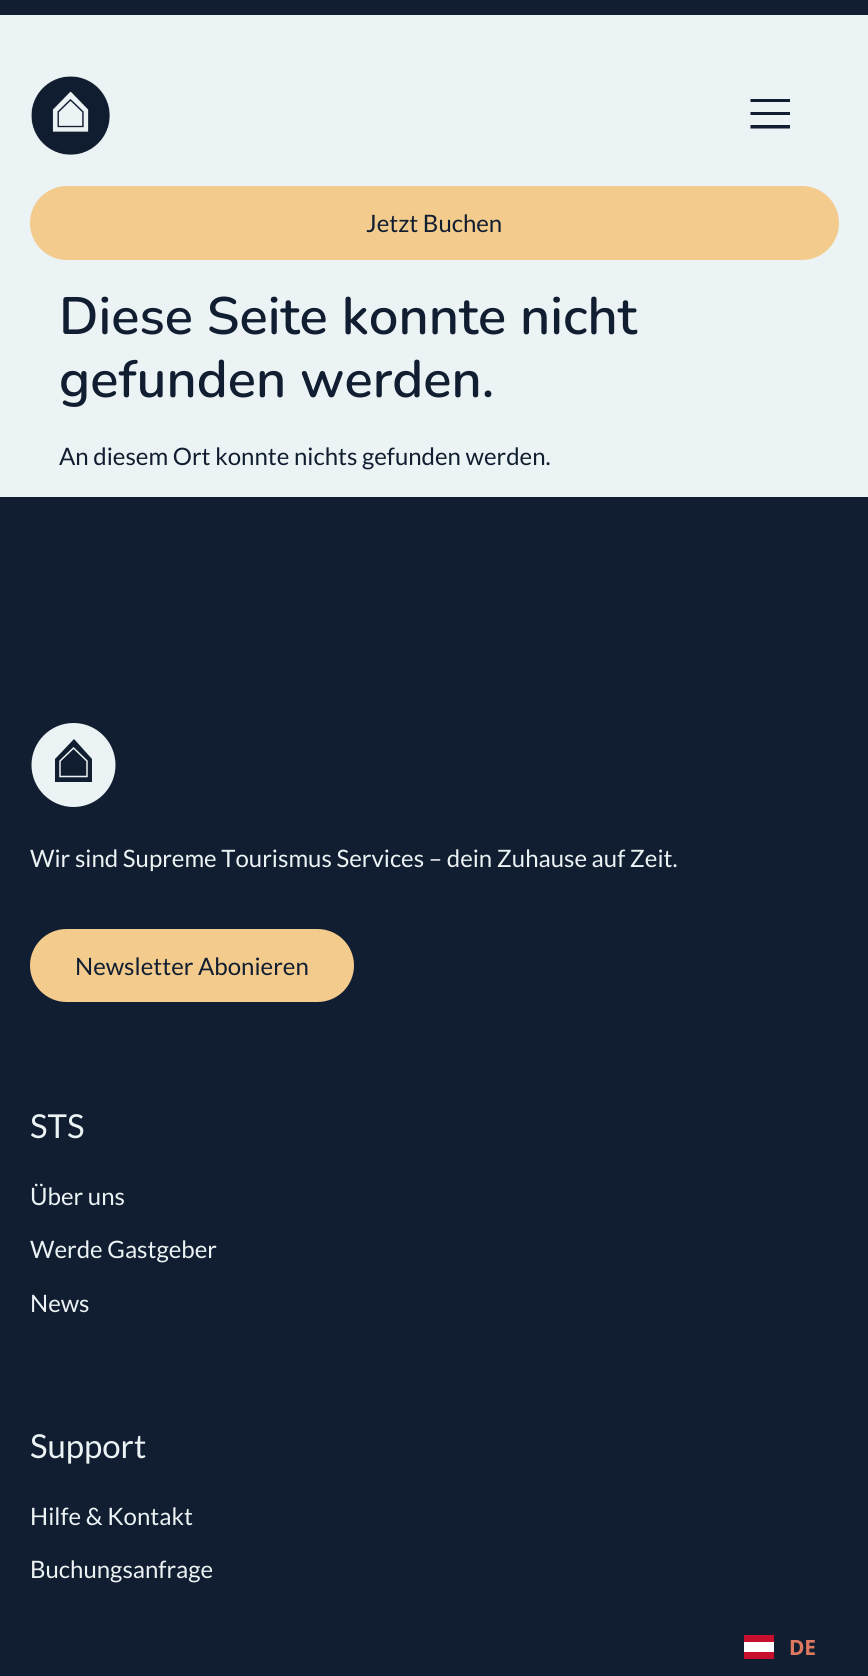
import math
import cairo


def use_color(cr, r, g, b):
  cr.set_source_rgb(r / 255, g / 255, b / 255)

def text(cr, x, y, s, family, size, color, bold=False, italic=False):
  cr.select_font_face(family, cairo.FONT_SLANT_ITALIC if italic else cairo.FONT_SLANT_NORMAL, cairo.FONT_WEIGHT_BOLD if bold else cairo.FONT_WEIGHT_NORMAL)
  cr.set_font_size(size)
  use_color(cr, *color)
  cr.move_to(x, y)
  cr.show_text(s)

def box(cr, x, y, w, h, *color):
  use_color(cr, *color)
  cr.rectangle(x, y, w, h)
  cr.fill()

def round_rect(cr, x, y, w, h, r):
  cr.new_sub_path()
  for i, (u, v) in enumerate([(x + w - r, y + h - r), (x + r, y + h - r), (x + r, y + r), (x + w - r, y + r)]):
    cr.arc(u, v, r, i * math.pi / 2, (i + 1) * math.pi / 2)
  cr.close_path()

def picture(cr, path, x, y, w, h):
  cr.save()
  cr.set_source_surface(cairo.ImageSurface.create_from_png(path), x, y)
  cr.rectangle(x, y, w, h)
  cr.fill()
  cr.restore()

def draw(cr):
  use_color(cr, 236, 243, 244)
  cr.paint()
  box(cr, 0, 0, 868, 15, 17, 29, 48)
  picture(cr, "img_01.png", 31, 76, 79, 79)
  cr.new_path()
  cr.move_to(750.5, 99)
  cr.line_to(750.5, 102)
  cr.line_to(790, 102)
  cr.line_to(790, 99)
  cr.close_path()
  cr.move_to(750.5, 112)
  cr.line_to(750.5, 115)
  cr.line_to(790, 115)
  cr.line_to(790, 112)
  cr.close_path()
  cr.move_to(750.5, 125)
  cr.line_to(750.5, 128.5)
  cr.line_to(790, 128.5)
  cr.line_to(790, 125)
  cr.close_path()
  cr.fill()
  use_color(cr, 242, 203, 141)
  round_rect(cr, 30, 186, 809, 74, 37)
  cr.fill()
  box(cr, 0, 497, 868, 1179, 17, 29, 48)
  use_color(cr, 236, 243, 244)
  cr.arc(73.5, 765, 42, 0, 2 * math.pi)
  cr.fill()
  use_color(cr, 17, 29, 48)
  cr.new_path()
  cr.move_to(92, 759)
  cr.line_to(92, 782)
  cr.line_to(55, 782)
  cr.line_to(55, 759)
  cr.line_to(74, 739)
  cr.close_path()
  cr.fill()
  cr.new_path()
  cr.move_to(87, 761)
  cr.line_to(87, 776.5)
  cr.line_to(60, 776.5)
  cr.line_to(60, 761)
  cr.line_to(73.5, 748)
  cr.close_path()
  use_color(cr, 236, 243, 244)
  cr.set_line_width(1.5)
  cr.stroke()
  use_color(cr, 242, 203, 141)
  round_rect(cr, 30, 929, 324, 73, 36.5)
  cr.fill()
  box(cr, 744, 1642, 30, 10, 255, 255, 255)
  cr.save()
  cr.rectangle(744, 1635, 30, 24)
  cr.clip()
  use_color(cr, 200, 16, 46)
  cr.new_path()
  cr.move_to(744, 1632)
  cr.line_to(774, 1632)
  cr.line_to(774, 1642)
  cr.line_to(744, 1642)
  cr.close_path()
  cr.move_to(744, 1652)
  cr.line_to(774, 1652)
  cr.line_to(774, 1662)
  cr.line_to(744, 1662)
  cr.close_path()
  cr.fill()
  cr.restore()
  text(cr, 366, 232, "Jetzt Buchen", "Lato", 24, (17, 29, 48))
  text(cr, 59, 334, "Diese Seite konnte nicht", "Nunito SemiBold", 52.5, (17, 29, 48))
  text(cr, 59, 397, "gefunden werden.", "Nunito SemiBold", 52.5, (17, 29, 48))
  text(cr, 59, 465, "An diesem Ort konnte nichts gefunden werden.", "Lato", 24, (17, 29, 48))
  text(cr, 30, 867, "Wir sind Supreme Tourismus Services – dein Zuhause auf Zeit.", "Lato", 24, (236, 243, 244))
  text(cr, 75, 975, "Newsletter Abonieren", "Lato", 24, (17, 29, 48))
  text(cr, 30, 1138, "STS", "Lato", 33, (236, 243, 244))
  text(cr, 30, 1205, "Über uns", "Lato", 24, (236, 243, 244))
  text(cr, 30, 1258, "Werde Gastgeber", "Lato", 24, (236, 243, 244))
  text(cr, 30, 1312, "News", "Lato", 24, (236, 243, 244))
  text(cr, 30, 1458, "Support", "Lato", 33, (236, 243, 244))
  text(cr, 30, 1525, "Hilfe & Kontakt", "Lato", 24, (236, 243, 244))
  text(cr, 30, 1578, "Buchungsanfrage", "Lato", 24, (236, 243, 244))
  text(cr, 789, 1655, "DE", "Noto Sans", 21, (222, 121, 96), bold=True)


surface = cairo.ImageSurface(cairo.FORMAT_RGB24, 868, 1676)
cr = cairo.Context(surface)
options = cairo.FontOptions()
options.set_hint_metrics(cairo.HINT_METRICS_OFF)
options.set_hint_style(cairo.HINT_STYLE_NONE)
cr.set_font_options(options)
cr.set_miter_limit(4)
draw(cr)
surface.write_to_png("out.png")
